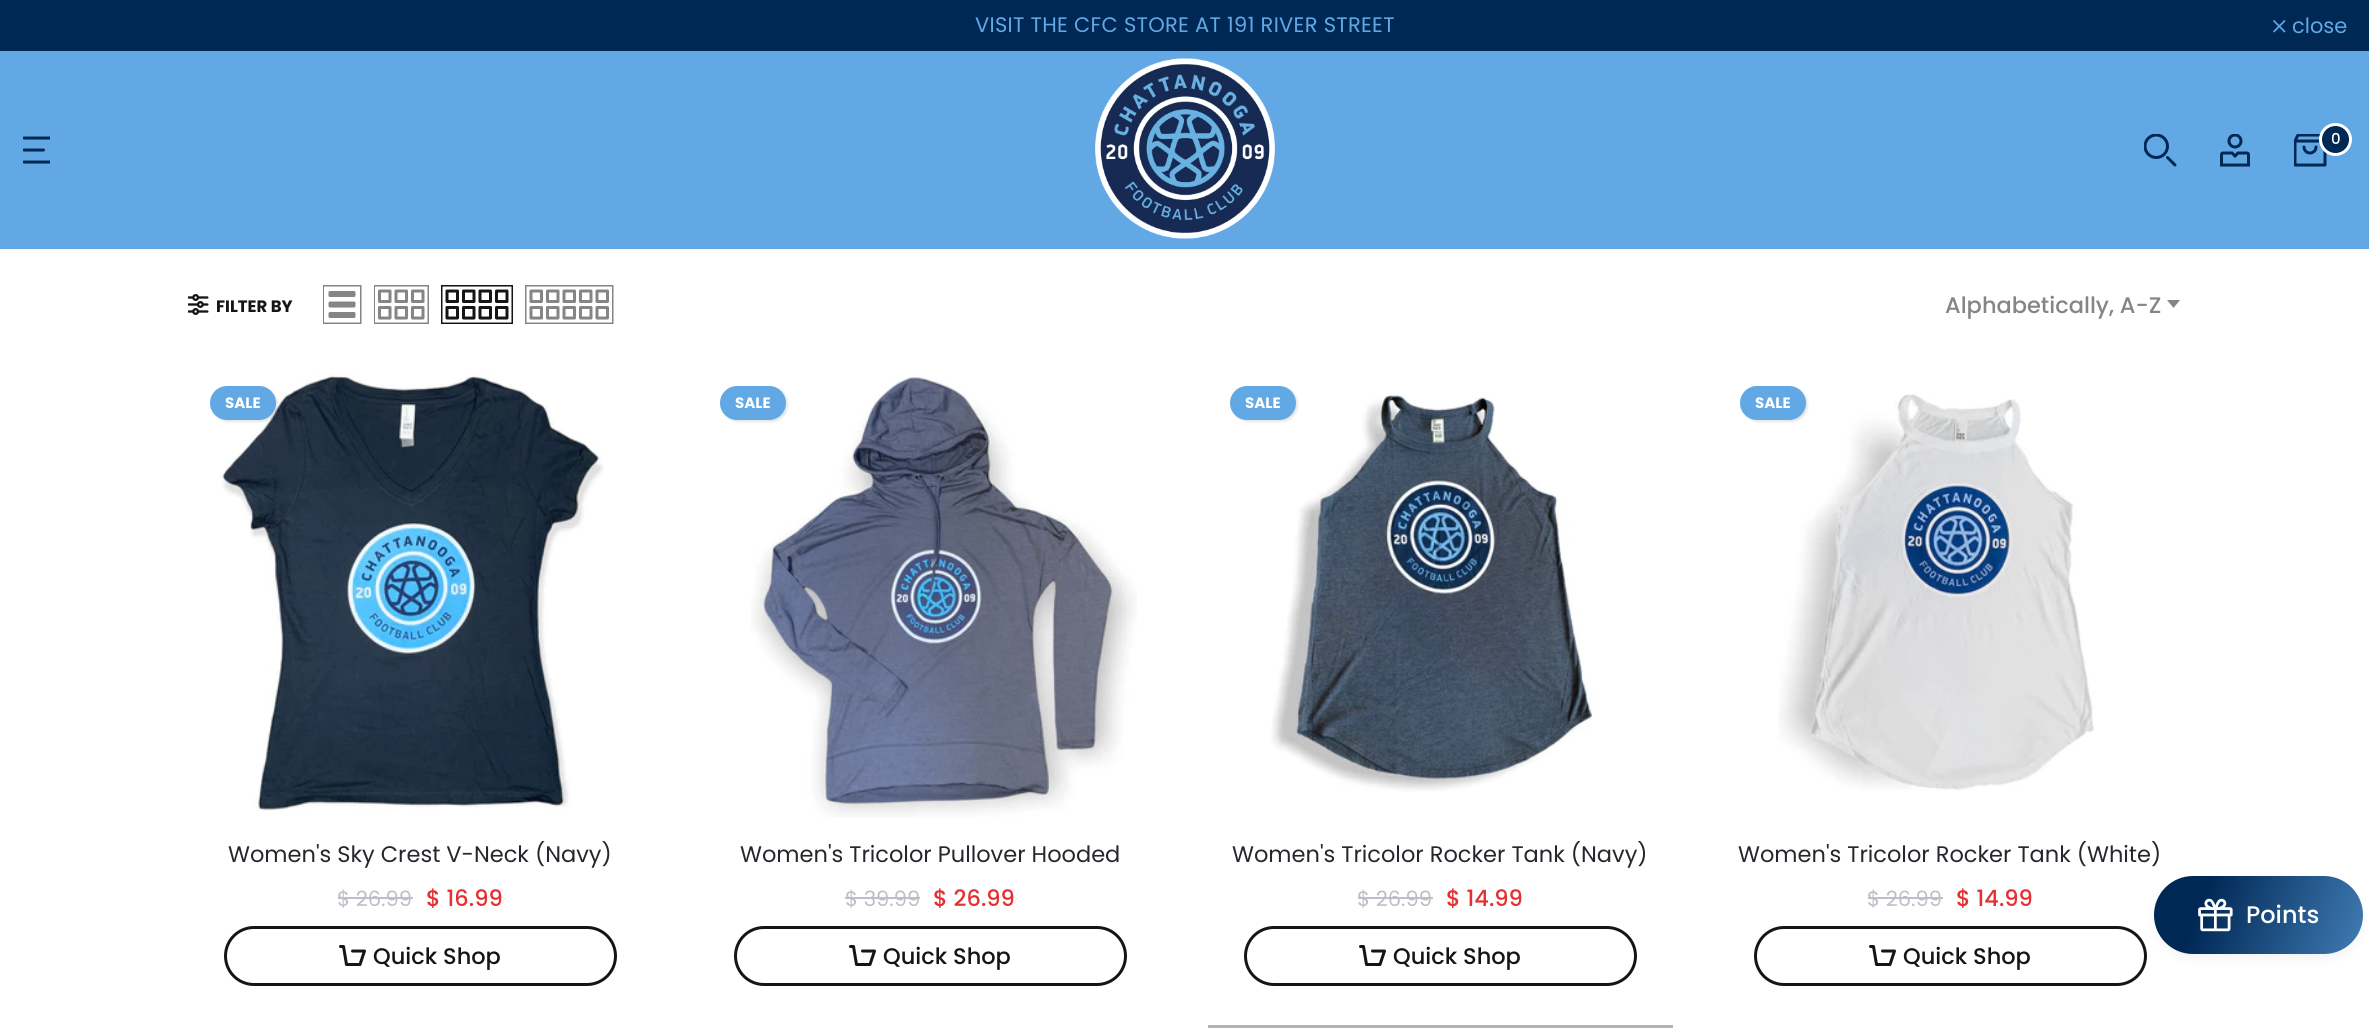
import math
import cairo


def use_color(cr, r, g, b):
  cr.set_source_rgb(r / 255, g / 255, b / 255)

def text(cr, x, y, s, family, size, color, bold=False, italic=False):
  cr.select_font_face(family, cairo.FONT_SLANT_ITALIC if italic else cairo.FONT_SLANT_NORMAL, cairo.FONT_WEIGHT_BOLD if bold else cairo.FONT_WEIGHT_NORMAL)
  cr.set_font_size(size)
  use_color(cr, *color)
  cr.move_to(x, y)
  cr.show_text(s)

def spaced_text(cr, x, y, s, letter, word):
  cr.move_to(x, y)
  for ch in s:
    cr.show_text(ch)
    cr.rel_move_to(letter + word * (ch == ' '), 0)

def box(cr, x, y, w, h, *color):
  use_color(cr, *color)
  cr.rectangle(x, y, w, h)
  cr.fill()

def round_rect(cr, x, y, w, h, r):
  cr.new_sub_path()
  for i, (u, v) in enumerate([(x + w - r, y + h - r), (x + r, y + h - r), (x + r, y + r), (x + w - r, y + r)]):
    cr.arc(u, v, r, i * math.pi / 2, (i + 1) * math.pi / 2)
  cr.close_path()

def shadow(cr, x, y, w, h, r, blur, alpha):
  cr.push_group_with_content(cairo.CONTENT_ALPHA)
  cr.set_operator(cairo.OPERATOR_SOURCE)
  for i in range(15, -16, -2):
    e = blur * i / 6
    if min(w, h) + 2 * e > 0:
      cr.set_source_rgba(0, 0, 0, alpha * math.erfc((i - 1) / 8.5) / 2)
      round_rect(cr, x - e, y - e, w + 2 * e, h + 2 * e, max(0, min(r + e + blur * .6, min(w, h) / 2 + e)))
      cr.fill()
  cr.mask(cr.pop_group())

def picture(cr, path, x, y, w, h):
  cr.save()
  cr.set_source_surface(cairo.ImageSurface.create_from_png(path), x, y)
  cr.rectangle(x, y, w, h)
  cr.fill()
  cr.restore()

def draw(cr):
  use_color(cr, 255, 255, 255)
  cr.paint()
  box(cr, 0, 0, 2369, 51, 0, 40, 85)
  cr.new_path()
  cr.move_to(2285, 20.5)
  cr.line_to(2273.5, 32)
  cr.move_to(2285, 32)
  cr.line_to(2273.5, 20.5)
  use_color(cr, 98, 168, 229)
  cr.set_line_width(1.7)
  cr.stroke()
  box(cr, 0, 51, 2369, 198, 98, 168, 229)
  picture(cr, "img_01.png", 23, 136, 27, 28)
  picture(cr, "img_02.png", 1095, 58, 180, 181)
  picture(cr, "img_03.png", 2144, 134, 33, 33)
  picture(cr, "img_04.png", 2220, 134, 30, 33)
  picture(cr, "img_05.png", 2294, 134, 33, 33)
  use_color(cr, 0, 40, 85)
  cr.arc(2335.5, 139.5, 15, 0, 2 * math.pi)
  cr.fill_preserve()
  use_color(cr, 255, 255, 255)
  cr.set_line_width(3)
  cr.stroke()
  picture(cr, "img_06.png", 188, 294, 21, 21)
  picture(cr, "img_07.png", 323, 285, 39, 39)
  picture(cr, "img_08.png", 374, 285, 55, 39)
  picture(cr, "img_09.png", 441, 285, 72, 39)
  picture(cr, "img_10.png", 525, 285, 89, 39)
  use_color(cr, 133, 133, 133)
  cr.new_path()
  cr.move_to(2167, 300)
  cr.line_to(2180, 300)
  cr.line_to(2173.5, 308)
  cr.close_path()
  cr.fill()
  picture(cr, "img_11.png", 220, 373, 384, 438)
  use_color(cr, 0, 0, 0)
  shadow(cr, 212, 387, 66, 35, 17.5, 1, 0.1)
  use_color(cr, 98, 168, 229)
  round_rect(cr, 210, 386, 66, 34, 17)
  cr.fill()
  box(cr, 338, 897, 75, 2, 191, 190, 200)
  round_rect(cr, 225.5, 927.5, 390, 57, 28.5)
  use_color(cr, 21, 21, 21)
  cr.stroke()
  picture(cr, "img_12.png", 339, 945, 27, 21)
  picture(cr, "img_13.png", 751, 377, 386, 441)
  use_color(cr, 0, 0, 0)
  shadow(cr, 722, 387, 66, 35, 17.5, 1, 0.1)
  use_color(cr, 98, 168, 229)
  round_rect(cr, 720, 386, 66, 34, 17)
  cr.fill()
  box(cr, 845, 897, 75, 2, 191, 190, 200)
  round_rect(cr, 735.5, 927.5, 390, 57, 28.5)
  use_color(cr, 21, 21, 21)
  cr.stroke()
  picture(cr, "img_12.png", 849, 945, 27, 21)
  picture(cr, "img_14.png", 1271, 393, 322, 399)
  use_color(cr, 0, 0, 0)
  shadow(cr, 1232, 387, 66, 35, 17.5, 1, 0.1)
  use_color(cr, 98, 168, 229)
  round_rect(cr, 1230, 386, 66, 34, 17)
  cr.fill()
  box(cr, 1358, 897, 75, 2, 191, 190, 200)
  round_rect(cr, 1245.5, 927.5, 390, 57, 28.5)
  use_color(cr, 21, 21, 21)
  cr.stroke()
  picture(cr, "img_12.png", 1359, 945, 27, 21)
  picture(cr, "img_15.png", 1778, 394, 316, 397)
  use_color(cr, 0, 0, 0)
  shadow(cr, 1742, 387, 66, 35, 17.5, 1, 0.1)
  use_color(cr, 98, 168, 229)
  round_rect(cr, 1740, 386, 66, 34, 17)
  cr.fill()
  box(cr, 1868, 897, 75, 2, 191, 190, 200)
  round_rect(cr, 1755.5, 927.5, 390, 57, 28.5)
  use_color(cr, 21, 21, 21)
  cr.stroke()
  picture(cr, "img_12.png", 1869, 945, 27, 21)
  box(cr, 1208, 1025, 465, 3, 179, 179, 179)
  use_color(cr, 68, 68, 68)
  shadow(cr, 2157, 885, 203, 72, 36, 6, 0.08)
  gradient = cairo.LinearGradient(2153, 878, 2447, 982)
  gradient.add_color_stop_rgba(0.17, 0, 0.157, 0.333, 1)
  gradient.add_color_stop_rgba(1, 0.384, 0.659, 0.898, 1)
  cr.set_source(gradient)
  round_rect(cr, 2154, 876, 209, 78, 39)
  cr.fill()
  picture(cr, "img_16.png", 2198, 898, 35, 34)
  cr.select_font_face("Poppins")
  cr.set_font_size(21)
  use_color(cr, 98, 168, 229)
  spaced_text(cr, 975, 32, "VISIT THE CFC STORE AT 191 RIVER STREET", 0.3, 0)
  text(cr, 2292, 33, "close", "Poppins", 21, (98, 168, 229))
  text(cr, 2331, 144, "0", "Poppins Medium", 15, (255, 255, 255))
  text(cr, 216, 312, "FILTER BY", "Poppins", 16.5, (21, 21, 21), bold=True)
  text(cr, 1945, 313, "Alphabetically, A-Z", "Poppins Medium", 22.5, (133, 133, 133))
  text(cr, 225, 408, "SALE", "Poppins", 15, (255, 255, 255), bold=True)
  text(cr, 228, 862, "Women's Sky Crest V-Neck (Navy)", "Poppins", 22.5, (39, 38, 44))
  text(cr, 337, 906, "$ 26.99", "Poppins", 21, (191, 190, 200))
  text(cr, 426, 906, "$ 16.99", "Poppins Medium", 22.5, (227, 49, 49))
  text(cr, 373, 964, "Quick Shop", "Poppins Medium", 22.5, (21, 21, 21))
  text(cr, 735, 408, "SALE", "Poppins", 15, (255, 255, 255), bold=True)
  text(cr, 740, 862, "Women's Tricolor Pullover Hooded", "Poppins", 22.5, (39, 38, 44))
  text(cr, 845, 906, "$ 39.99", "Poppins", 21, (191, 190, 200))
  text(cr, 933, 906, "$ 26.99", "Poppins Medium", 22.5, (227, 49, 49))
  text(cr, 883, 964, "Quick Shop", "Poppins Medium", 22.5, (21, 21, 21))
  text(cr, 1245, 408, "SALE", "Poppins", 15, (255, 255, 255), bold=True)
  text(cr, 1232, 862, "Women's Tricolor Rocker Tank (Navy)", "Poppins", 22.5, (39, 38, 44))
  text(cr, 1357, 906, "$ 26.99", "Poppins", 21, (191, 190, 200))
  text(cr, 1446, 906, "$ 14.99", "Poppins Medium", 22.5, (227, 49, 49))
  text(cr, 1393, 964, "Quick Shop", "Poppins Medium", 22.5, (21, 21, 21))
  text(cr, 1755, 408, "SALE", "Poppins", 15, (255, 255, 255), bold=True)
  text(cr, 1738, 862, "Women's Tricolor Rocker Tank (White)", "Poppins", 22.5, (39, 38, 44))
  text(cr, 1867, 906, "$ 26.99", "Poppins", 21, (191, 190, 200))
  text(cr, 1956, 906, "$ 14.99", "Poppins Medium", 22.5, (227, 49, 49))
  text(cr, 1903, 964, "Quick Shop", "Poppins Medium", 22.5, (21, 21, 21))
  text(cr, 2246, 923, "Points", "Poppins Medium", 24, (255, 255, 255))


surface = cairo.ImageSurface(cairo.FORMAT_RGB24, 2369, 1028)
cr = cairo.Context(surface)
options = cairo.FontOptions()
options.set_hint_metrics(cairo.HINT_METRICS_OFF)
options.set_hint_style(cairo.HINT_STYLE_NONE)
cr.set_font_options(options)
cr.set_miter_limit(4)
draw(cr)
surface.write_to_png("out.png")
